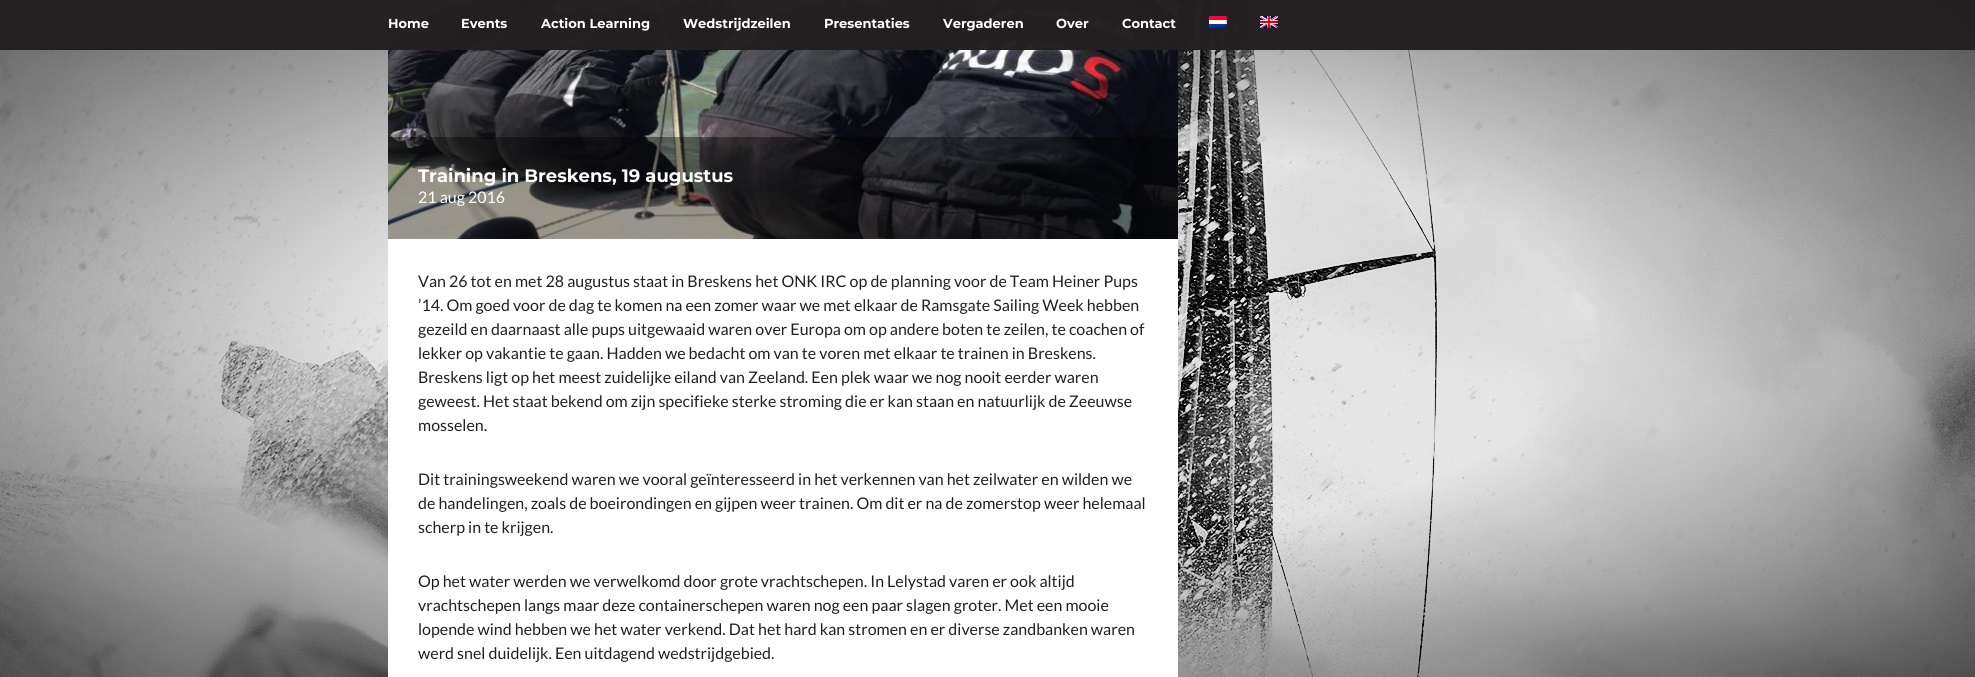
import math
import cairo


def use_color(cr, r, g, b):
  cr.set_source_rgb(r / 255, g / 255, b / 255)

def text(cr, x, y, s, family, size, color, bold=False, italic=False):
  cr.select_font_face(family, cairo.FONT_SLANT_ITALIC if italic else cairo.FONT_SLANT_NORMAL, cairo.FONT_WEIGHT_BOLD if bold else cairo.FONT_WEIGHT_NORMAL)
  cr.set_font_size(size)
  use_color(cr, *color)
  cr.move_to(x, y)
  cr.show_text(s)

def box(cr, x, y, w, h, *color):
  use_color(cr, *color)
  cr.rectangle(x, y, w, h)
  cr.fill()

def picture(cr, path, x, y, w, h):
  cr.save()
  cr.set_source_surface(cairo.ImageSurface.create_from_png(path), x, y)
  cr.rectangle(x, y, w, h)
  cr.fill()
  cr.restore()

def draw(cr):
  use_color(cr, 255, 255, 255)
  cr.paint()
  picture(cr, "img_01.png", 0, 0, 1975, 677)
  picture(cr, "img_04.png", 388, 0, 790, 239)
  cr.set_source_rgba(0.137, 0.122, 0.125, 0.98)
  cr.rectangle(0, 0, 1975, 50)
  cr.fill()
  picture(cr, "img_02.png", 1209, 16, 18, 12)
  picture(cr, "img_03.png", 1260, 16, 18, 12)
  box(cr, 388, 239, 790, 438, 255, 255, 255)
  cr.set_source_rgba(0, 0, 0, 0.4)
  cr.rectangle(388, 137, 790, 102)
  cr.fill()
  text(cr, 388, 28, "Home", "Montserrat Thin", 13, (255, 255, 255))
  text(cr, 461, 28, "Events", "Montserrat Thin", 13, (255, 255, 255))
  text(cr, 541, 28, "Action Learning", "Montserrat Thin", 13, (255, 255, 255))
  text(cr, 683, 28, "Wedstrijdzeilen", "Montserrat Thin", 13, (255, 255, 255))
  text(cr, 824, 28, "Presentaties", "Montserrat Thin", 13, (255, 255, 255))
  text(cr, 943, 28, "Vergaderen", "Montserrat Thin", 13, (255, 255, 255))
  text(cr, 1056, 28, "Over", "Montserrat Thin", 13, (255, 255, 255))
  text(cr, 1122, 28, "Contact", "Montserrat Thin", 13, (255, 255, 255))
  text(cr, 418, 182, "Training in Breskens, 19 augustus", "Montserrat Thin", 18, (255, 255, 255))
  text(cr, 418, 203, "21 aug 2016", "Lato", 16, (255, 255, 255))
  text(cr, 418, 287, "Van 26 tot en met 28 augustus staat in Breskens het ONK IRC op de planning voor de Team Heiner Pups", "Lato", 16, (35, 31, 32))
  text(cr, 418, 311, "’14. Om goed voor de dag te komen na een zomer waar we met elkaar de Ramsgate Sailing Week hebben", "Lato", 16, (35, 31, 32))
  text(cr, 418, 335, "gezeild en daarnaast alle pups uitgewaaid waren over Europa om op andere boten te zeilen, te coachen of", "Lato", 16, (35, 31, 32))
  text(cr, 418, 359, "lekker op vakantie te gaan. Hadden we bedacht om van te voren met elkaar te trainen in Breskens.", "Lato", 16, (35, 31, 32))
  text(cr, 418, 383, "Breskens ligt op het meest zuidelijke eiland van Zeeland. Een plek waar we nog nooit eerder waren", "Lato", 16, (35, 31, 32))
  text(cr, 418, 407, "geweest. Het staat bekend om zijn specifieke sterke stroming die er kan staan en natuurlijk de Zeeuwse", "Lato", 16, (35, 31, 32))
  text(cr, 418, 431, "mosselen.", "Lato", 16, (35, 31, 32))
  text(cr, 418, 485, "Dit trainingsweekend waren we vooral geïnteresseerd in het verkennen van het zeilwater en wilden we", "Lato", 16, (35, 31, 32))
  text(cr, 418, 509, "de handelingen, zoals de boeirondingen en gijpen weer trainen. Om dit er na de zomerstop weer helemaal", "Lato", 16, (35, 31, 32))
  text(cr, 418, 533, "scherp in te krijgen.", "Lato", 16, (35, 31, 32))
  text(cr, 418, 587, "Op het water werden we verwelkomd door grote vrachtschepen. In Lelystad varen er ook altijd", "Lato", 16, (35, 31, 32))
  text(cr, 418, 611, "vrachtschepen langs maar deze containerschepen waren nog een paar slagen groter. Met een mooie", "Lato", 16, (35, 31, 32))
  text(cr, 418, 635, "lopende wind hebben we het water verkend. Dat het hard kan stromen en er diverse zandbanken waren", "Lato", 16, (35, 31, 32))
  text(cr, 418, 659, "werd snel duidelijk. Een uitdagend wedstrijdgebied.", "Lato", 16, (35, 31, 32))


surface = cairo.ImageSurface(cairo.FORMAT_RGB24, 1975, 677)
cr = cairo.Context(surface)
options = cairo.FontOptions()
options.set_hint_metrics(cairo.HINT_METRICS_OFF)
options.set_hint_style(cairo.HINT_STYLE_NONE)
cr.set_font_options(options)
cr.set_miter_limit(4)
draw(cr)
surface.write_to_png("out.png")
